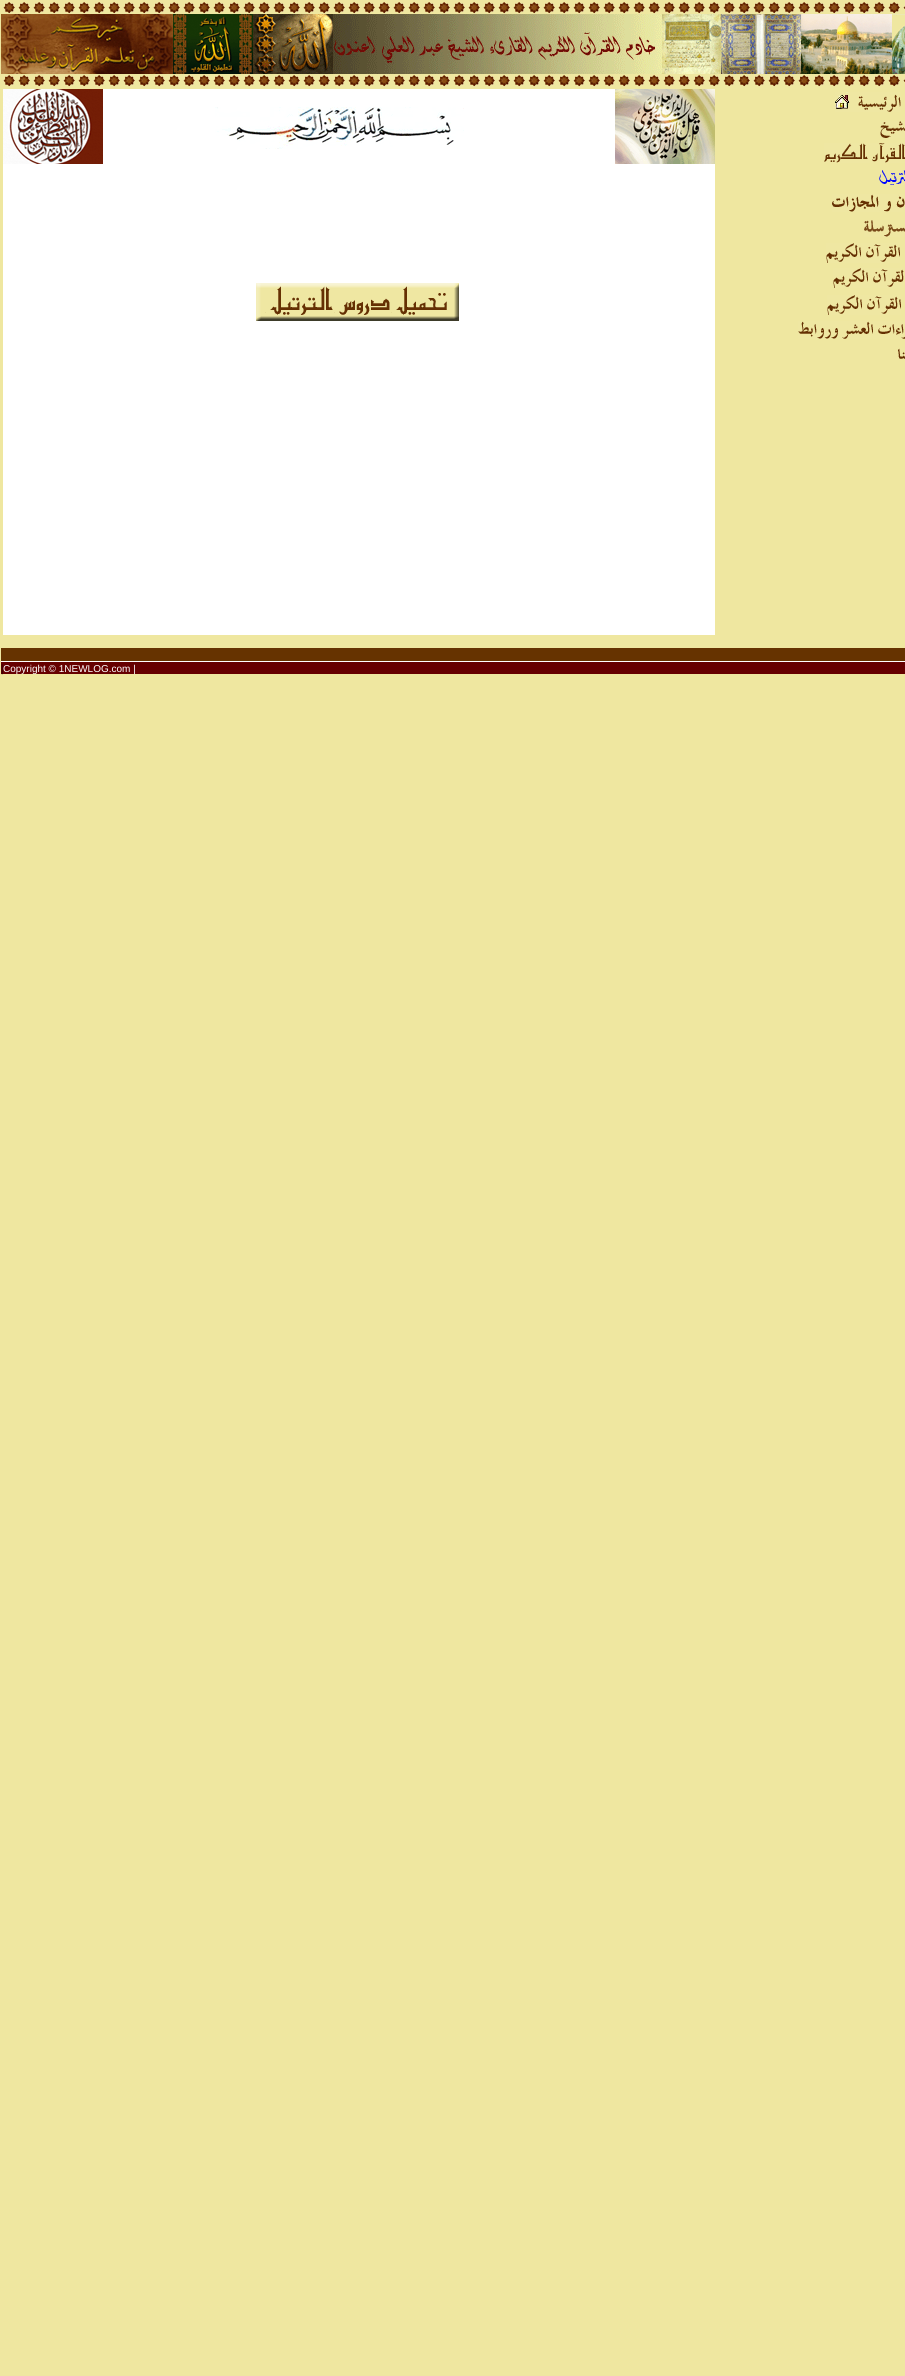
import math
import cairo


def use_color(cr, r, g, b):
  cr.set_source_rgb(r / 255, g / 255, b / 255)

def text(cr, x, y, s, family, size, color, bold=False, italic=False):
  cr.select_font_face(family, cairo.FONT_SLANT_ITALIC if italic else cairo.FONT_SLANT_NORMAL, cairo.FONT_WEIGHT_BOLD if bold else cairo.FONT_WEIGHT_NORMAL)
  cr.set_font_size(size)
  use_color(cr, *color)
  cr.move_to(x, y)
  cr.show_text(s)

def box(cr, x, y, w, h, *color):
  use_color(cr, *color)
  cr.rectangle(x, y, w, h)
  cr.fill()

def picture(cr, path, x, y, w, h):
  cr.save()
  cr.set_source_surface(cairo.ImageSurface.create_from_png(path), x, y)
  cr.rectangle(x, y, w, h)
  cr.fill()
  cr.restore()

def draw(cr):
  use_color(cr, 239, 231, 160)
  cr.paint()
  picture(cr, "img_01.png", 3, 2, 902, 12)
  picture(cr, "img_02.png", 1, 14, 172, 60)
  picture(cr, "img_03.png", 173, 14, 80, 60)
  picture(cr, "img_04.png", 253, 14, 468, 60)
  picture(cr, "img_05.png", 721, 14, 80, 60)
  picture(cr, "img_06.png", 801, 14, 91, 60)
  picture(cr, "img_07.png", 892, 14, 13, 60)
  picture(cr, "img_01.png", 3, 75, 902, 12)
  box(cr, 103, 89, 512, 75, 255, 255, 255)
  picture(cr, "img_08.png", 3, 89, 100, 75)
  picture(cr, "img_09.png", 215, 107, 249, 42)
  picture(cr, "img_10.png", 615, 89, 100, 75)
  picture(cr, "img_11.png", 835, 92, 66, 20)
  picture(cr, "img_12.png", 880, 121, 25, 17)
  picture(cr, "img_13.png", 824, 143, 81, 20)
  picture(cr, "img_14.png", 879, 170, 26, 15)
  picture(cr, "img_15.png", 832, 194, 73, 18)
  picture(cr, "img_16.png", 864, 220, 41, 17)
  picture(cr, "img_17.png", 826, 243, 74, 20)
  picture(cr, "img_18.png", 833, 268, 71, 20)
  picture(cr, "img_17.png", 827, 295, 74, 20)
  picture(cr, "img_19.png", 798, 321, 107, 18)
  picture(cr, "img_20.png", 898, 348, 7, 11)
  box(cr, 3, 164, 712, 471, 255, 255, 255)
  picture(cr, "img_21.png", 256, 283, 203, 38)
  box(cr, 1, 648, 904, 13, 102, 51, 0)
  box(cr, 1, 661, 904, 1, 255, 255, 255)
  box(cr, 1, 662, 904, 12, 102, 0, 0)
  text(cr, 1, 672, "|", "Liberation Serif", 11, (0, 0, 0))
  text(cr, 3, 672, "Copyright © 1NEWLOG.com |", "Liberation Sans", 10, (255, 255, 255))


surface = cairo.ImageSurface(cairo.FORMAT_RGB24, 905, 2376)
cr = cairo.Context(surface)
options = cairo.FontOptions()
options.set_hint_metrics(cairo.HINT_METRICS_OFF)
options.set_hint_style(cairo.HINT_STYLE_NONE)
cr.set_font_options(options)
cr.set_miter_limit(4)
draw(cr)
surface.write_to_png("out.png")
